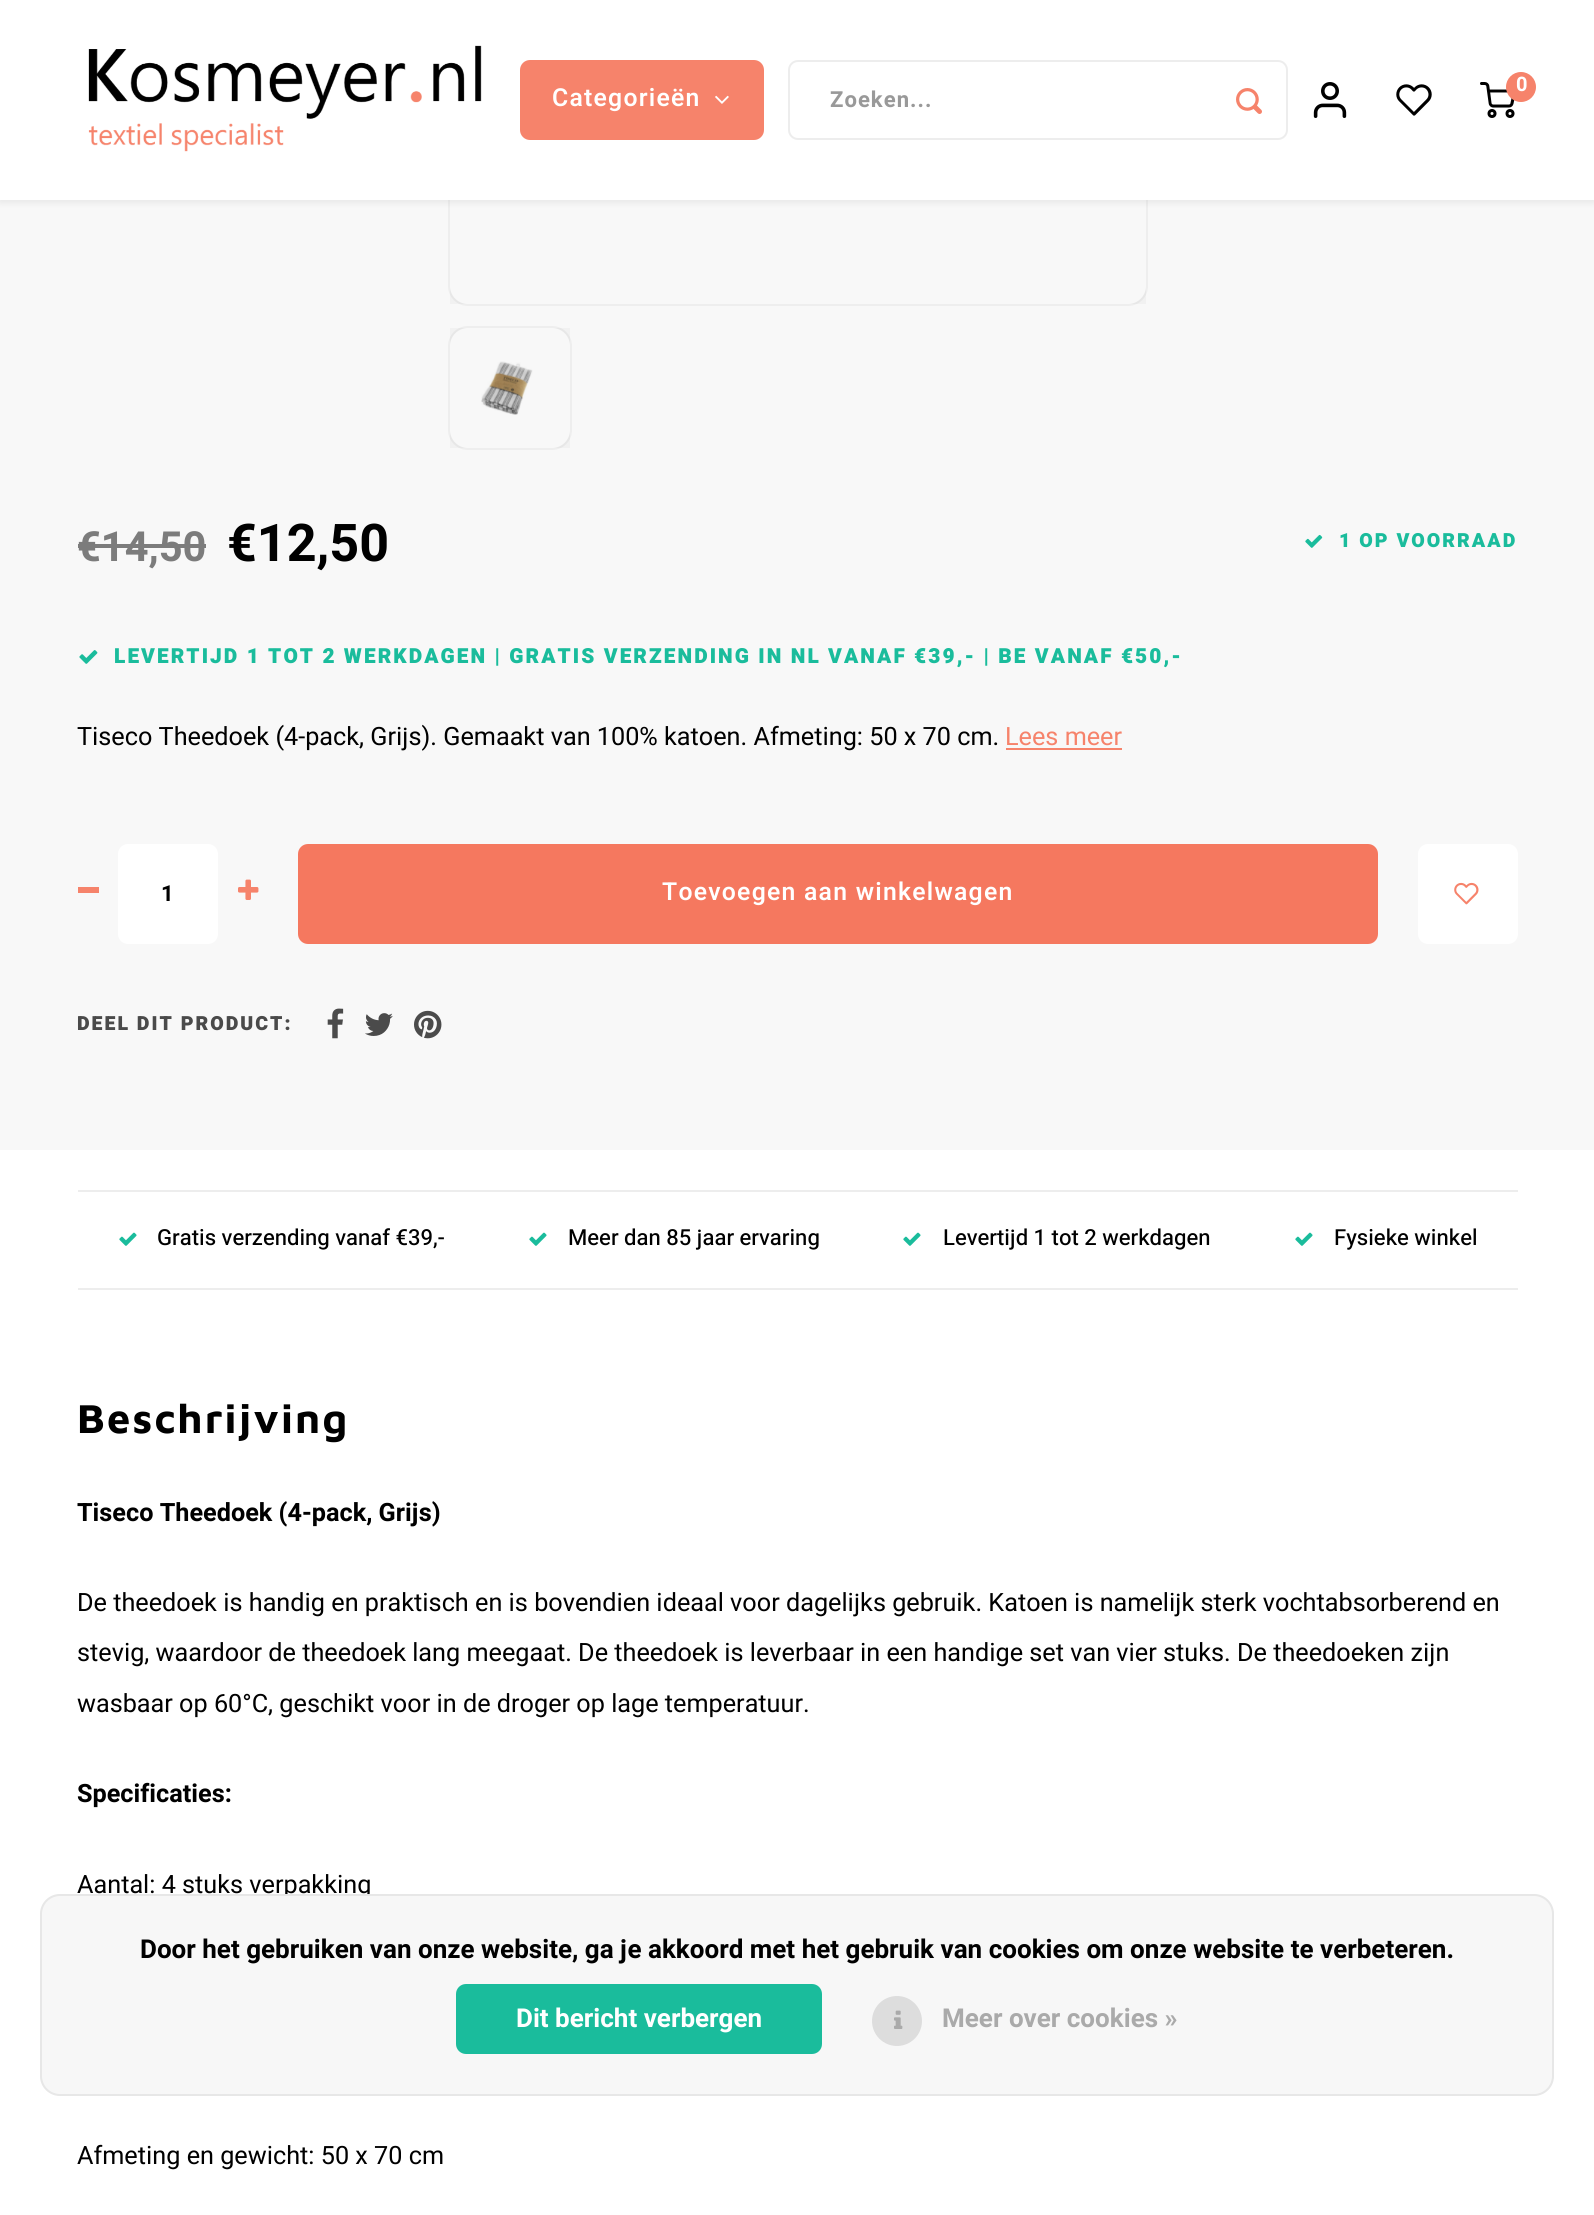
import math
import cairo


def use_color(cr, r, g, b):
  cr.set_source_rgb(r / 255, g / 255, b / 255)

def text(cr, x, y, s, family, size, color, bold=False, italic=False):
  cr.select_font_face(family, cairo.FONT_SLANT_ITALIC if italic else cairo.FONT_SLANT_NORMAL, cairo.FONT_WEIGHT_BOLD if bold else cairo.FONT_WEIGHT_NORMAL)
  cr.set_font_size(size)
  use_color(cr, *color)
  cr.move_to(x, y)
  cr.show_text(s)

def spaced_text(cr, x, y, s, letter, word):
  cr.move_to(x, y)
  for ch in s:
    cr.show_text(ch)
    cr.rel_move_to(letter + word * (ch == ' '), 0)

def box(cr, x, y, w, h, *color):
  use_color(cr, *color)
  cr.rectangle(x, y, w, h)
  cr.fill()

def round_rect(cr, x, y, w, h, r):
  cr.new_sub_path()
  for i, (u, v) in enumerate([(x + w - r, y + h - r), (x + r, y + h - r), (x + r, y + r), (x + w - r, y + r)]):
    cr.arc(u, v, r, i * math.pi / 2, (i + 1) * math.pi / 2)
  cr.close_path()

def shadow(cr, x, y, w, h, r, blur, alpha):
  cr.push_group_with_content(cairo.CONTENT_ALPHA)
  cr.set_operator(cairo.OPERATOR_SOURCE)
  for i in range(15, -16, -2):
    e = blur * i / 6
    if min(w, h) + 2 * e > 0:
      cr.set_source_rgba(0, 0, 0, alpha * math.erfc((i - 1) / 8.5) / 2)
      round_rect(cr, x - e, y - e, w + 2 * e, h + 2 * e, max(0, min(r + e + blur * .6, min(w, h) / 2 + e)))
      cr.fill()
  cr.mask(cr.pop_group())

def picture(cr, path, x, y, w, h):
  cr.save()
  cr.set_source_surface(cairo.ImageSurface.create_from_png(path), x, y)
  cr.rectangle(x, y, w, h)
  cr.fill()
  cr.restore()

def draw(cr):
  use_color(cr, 255, 255, 255)
  cr.paint()
  box(cr, 0, 200, 1594, 950, 248, 248, 248)
  use_color(cr, 255, 255, 255)
  round_rect(cr, 448, -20, 700, 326, 20)
  cr.fill()
  round_rect(cr, 449, -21, 698, 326, 19)
  cr.set_source_rgba(0, 0, 0, 0.07)
  cr.stroke()
  cr.set_source_rgba(0, 0, 0, 0.03)
  cr.rectangle(450, 200, 696, 104)
  cr.fill()
  use_color(cr, 0, 0, 0)
  shadow(cr, 0, 2, 1594, 200, 0, 4, 0.08)
  box(cr, 0, 0, 1594, 200, 255, 255, 255)
  picture(cr, "img_01.png", 88, 45, 394, 107)
  picture(cr, "img_02.png", 1313, 82, 34, 36)
  picture(cr, "img_03.png", 1396, 84, 36, 32)
  picture(cr, "img_04.png", 1480, 82, 35, 36)
  use_color(cr, 246, 131, 107)
  cr.arc(1521, 87, 15, 0, 2 * math.pi)
  cr.fill()
  round_rect(cr, 520, 60, 244, 80, 10)
  cr.fill()
  picture(cr, "img_05.png", 715, 95, 14, 9)
  round_rect(cr, 789, 61, 498, 78, 9)
  use_color(cr, 237, 237, 237)
  cr.stroke()
  picture(cr, "img_06.png", 1236, 88, 26, 26)
  use_color(cr, 255, 255, 255)
  round_rect(cr, 448, 326, 124, 124, 20)
  cr.fill()
  round_rect(cr, 449, 327, 122, 122, 19)
  cr.set_source_rgba(0, 0, 0, 0.07)
  cr.stroke()
  picture(cr, "img_07.png", 481, 361, 52, 54)
  cr.set_source_rgba(0, 0, 0, 0.03)
  cr.rectangle(450, 328, 120, 120)
  cr.fill()
  box(cr, 78, 544, 128, 4, 124, 124, 124)
  picture(cr, "img_08.png", 1305, 534, 18, 14)
  picture(cr, "img_09.png", 79, 650, 19, 14)
  box(cr, 1006, 748, 116, 2, 246, 131, 107)
  box(cr, 78, 887, 21, 6, 246, 131, 107)
  use_color(cr, 255, 255, 255)
  round_rect(cr, 118, 844, 100, 100, 10)
  cr.fill()
  picture(cr, "img_10.png", 238, 879, 21, 21)
  use_color(cr, 245, 120, 95)
  round_rect(cr, 298, 844, 1080, 100, 10)
  cr.fill()
  use_color(cr, 255, 255, 255)
  round_rect(cr, 1418, 844, 100, 100, 10)
  cr.fill()
  picture(cr, "img_11.png", 1454, 882, 25, 23)
  picture(cr, "img_12.png", 327, 1008, 17, 31)
  picture(cr, "img_13.png", 365, 1013, 28, 23)
  picture(cr, "img_14.png", 414, 1010, 28, 29)
  box(cr, 78, 1190, 1440, 2, 237, 237, 237)
  box(cr, 78, 1288, 1440, 2, 237, 237, 237)
  picture(cr, "img_15.png", 119, 1232, 18, 14)
  picture(cr, "img_15.png", 529, 1232, 18, 14)
  picture(cr, "img_15.png", 903, 1232, 18, 14)
  picture(cr, "img_15.png", 1295, 1232, 18, 14)
  text(cr, 1516, 91, "0", "Heebo", 20, (255, 255, 255), bold=True)
  cr.select_font_face("Heebo SemiBold")
  cr.set_font_size(24.75)
  spaced_text(cr, 552, 106, "Categorieën", 1.25, 0)
  cr.select_font_face("Heebo", cairo.FONT_SLANT_NORMAL, cairo.FONT_WEIGHT_BOLD)
  cr.set_font_size(22.1)
  use_color(cr, 153, 153, 153)
  spaced_text(cr, 830, 107, "Zoeken...", 1, 0)
  text(cr, 77, 561, "€14,50", "Heebo", 41.5, (124, 124, 124), bold=True)
  text(cr, 227, 561, "€12,50", "Heebo", 52, (0, 0, 0), bold=True)
  cr.select_font_face("Heebo Black")
  cr.set_font_size(19.5)
  use_color(cr, 26, 188, 156)
  spaced_text(cr, 1339, 547, "1 OP VOORRAAD", 2, 0)
  cr.set_font_size(20.8)
  spaced_text(cr, 114, 663, "LEVERTIJD 1 TOT 2 WERKDAGEN | GRATIS VERZENDING IN NL VANAF €39,- | BE VANAF €50,-", 2.08, 0)
  text(cr, 77, 745, "Tiseco Theedoek (4-pack, Grijs). Gemaakt van 100% katoen. Afmeting: 50 x 70 cm.", "Heebo", 25.22, (0, 0, 0))
  text(cr, 1005, 745, "Lees meer", "Heebo", 25.22, (246, 131, 107))
  cr.select_font_face("Heebo", cairo.FONT_SLANT_NORMAL, cairo.FONT_WEIGHT_BOLD)
  cr.set_font_size(22.1)
  use_color(cr, 0, 0, 0)
  spaced_text(cr, 161, 901, "1", 1, 0)
  cr.select_font_face("Heebo SemiBold")
  cr.set_font_size(24.75)
  use_color(cr, 255, 255, 255)
  spaced_text(cr, 662, 900, "Toevoegen aan winkelwagen", 1.25, 0)
  cr.select_font_face("Heebo Black")
  cr.set_font_size(19.5)
  use_color(cr, 74, 74, 74)
  spaced_text(cr, 77, 1030, "DEEL DIT PRODUCT:", 2, 0)
  text(cr, 157, 1245, "Gratis verzending vanaf €39,-", "Heebo Medium", 22.1, (0, 0, 0))
  text(cr, 568, 1245, "Meer dan 85 jaar ervaring", "Heebo Medium", 22.1, (0, 0, 0))
  text(cr, 943, 1245, "Levertijd 1 tot 2 werkdagen", "Heebo Medium", 22.1, (0, 0, 0))
  text(cr, 1334, 1245, "Fysieke winkel", "Heebo Medium", 22.1, (0, 0, 0))
  cr.select_font_face("Maven Pro", cairo.FONT_SLANT_NORMAL, cairo.FONT_WEIGHT_BOLD)
  cr.set_font_size(41.5)
  spaced_text(cr, 77, 1433, "Beschrijving", 2.08, 0)
  text(cr, 77, 1521, "Tiseco Theedoek (4-pack, Grijs)", "Heebo", 25.22, (0, 0, 0), bold=True)
  text(cr, 77, 1611, "De theedoek is handig en praktisch en is bovendien ideaal voor dagelijks gebruik. Katoen is namelijk sterk vochtabsorberend en", "Heebo", 25.22, (0, 0, 0))
  text(cr, 77, 1661, "stevig, waardoor de theedoek lang meegaat. De theedoek is leverbaar in een handige set van vier stuks. De theedoeken zijn", "Heebo", 25.22, (0, 0, 0))
  text(cr, 77, 1712, "wasbaar op 60°C, geschikt voor in de droger op lage temperatuur.", "Heebo", 25.22, (0, 0, 0))
  text(cr, 77, 1802, "Specificaties:", "Heebo", 25.22, (0, 0, 0), bold=True)
  text(cr, 77, 1893, "Aantal: 4 stuks verpakking", "Heebo", 25.22, (0, 0, 0))
  text(cr, 77, 2164, "Afmeting en gewicht: 50 x 70 cm", "Heebo", 25.22, (0, 0, 0))
  use_color(cr, 247, 247, 247)
  round_rect(cr, 40, 1894, 1514, 202, 20)
  cr.fill()
  round_rect(cr, 41, 1895, 1512, 200, 19)
  cr.set_source_rgba(0, 0, 0, 0.07)
  cr.stroke()
  text(cr, 140, 1958, "Door het gebruiken van onze website, ga je akkoord met het gebruik van cookies om onze website te verbeteren.", "Heebo", 26, (0, 0, 0), bold=True)
  use_color(cr, 26, 188, 156)
  round_rect(cr, 456, 1984, 366, 70, 10)
  cr.fill()
  text(cr, 516, 2027, "Dit bericht verbergen", "Heebo", 26, (255, 255, 255), bold=True)
  use_color(cr, 221, 221, 221)
  cr.new_path()
  cr.arc(897, 2021, 25, 0, 2 * math.pi)
  cr.fill()
  picture(cr, "img_16.png", 894, 2010, 9, 19)
  text(cr, 942, 2027, "Meer over cookies »", "Heebo", 26, (170, 170, 170), bold=True)


surface = cairo.ImageSurface(cairo.FORMAT_RGB24, 1594, 2215)
cr = cairo.Context(surface)
options = cairo.FontOptions()
options.set_hint_metrics(cairo.HINT_METRICS_OFF)
options.set_hint_style(cairo.HINT_STYLE_NONE)
cr.set_font_options(options)
cr.set_miter_limit(4)
draw(cr)
surface.write_to_png("out.png")
